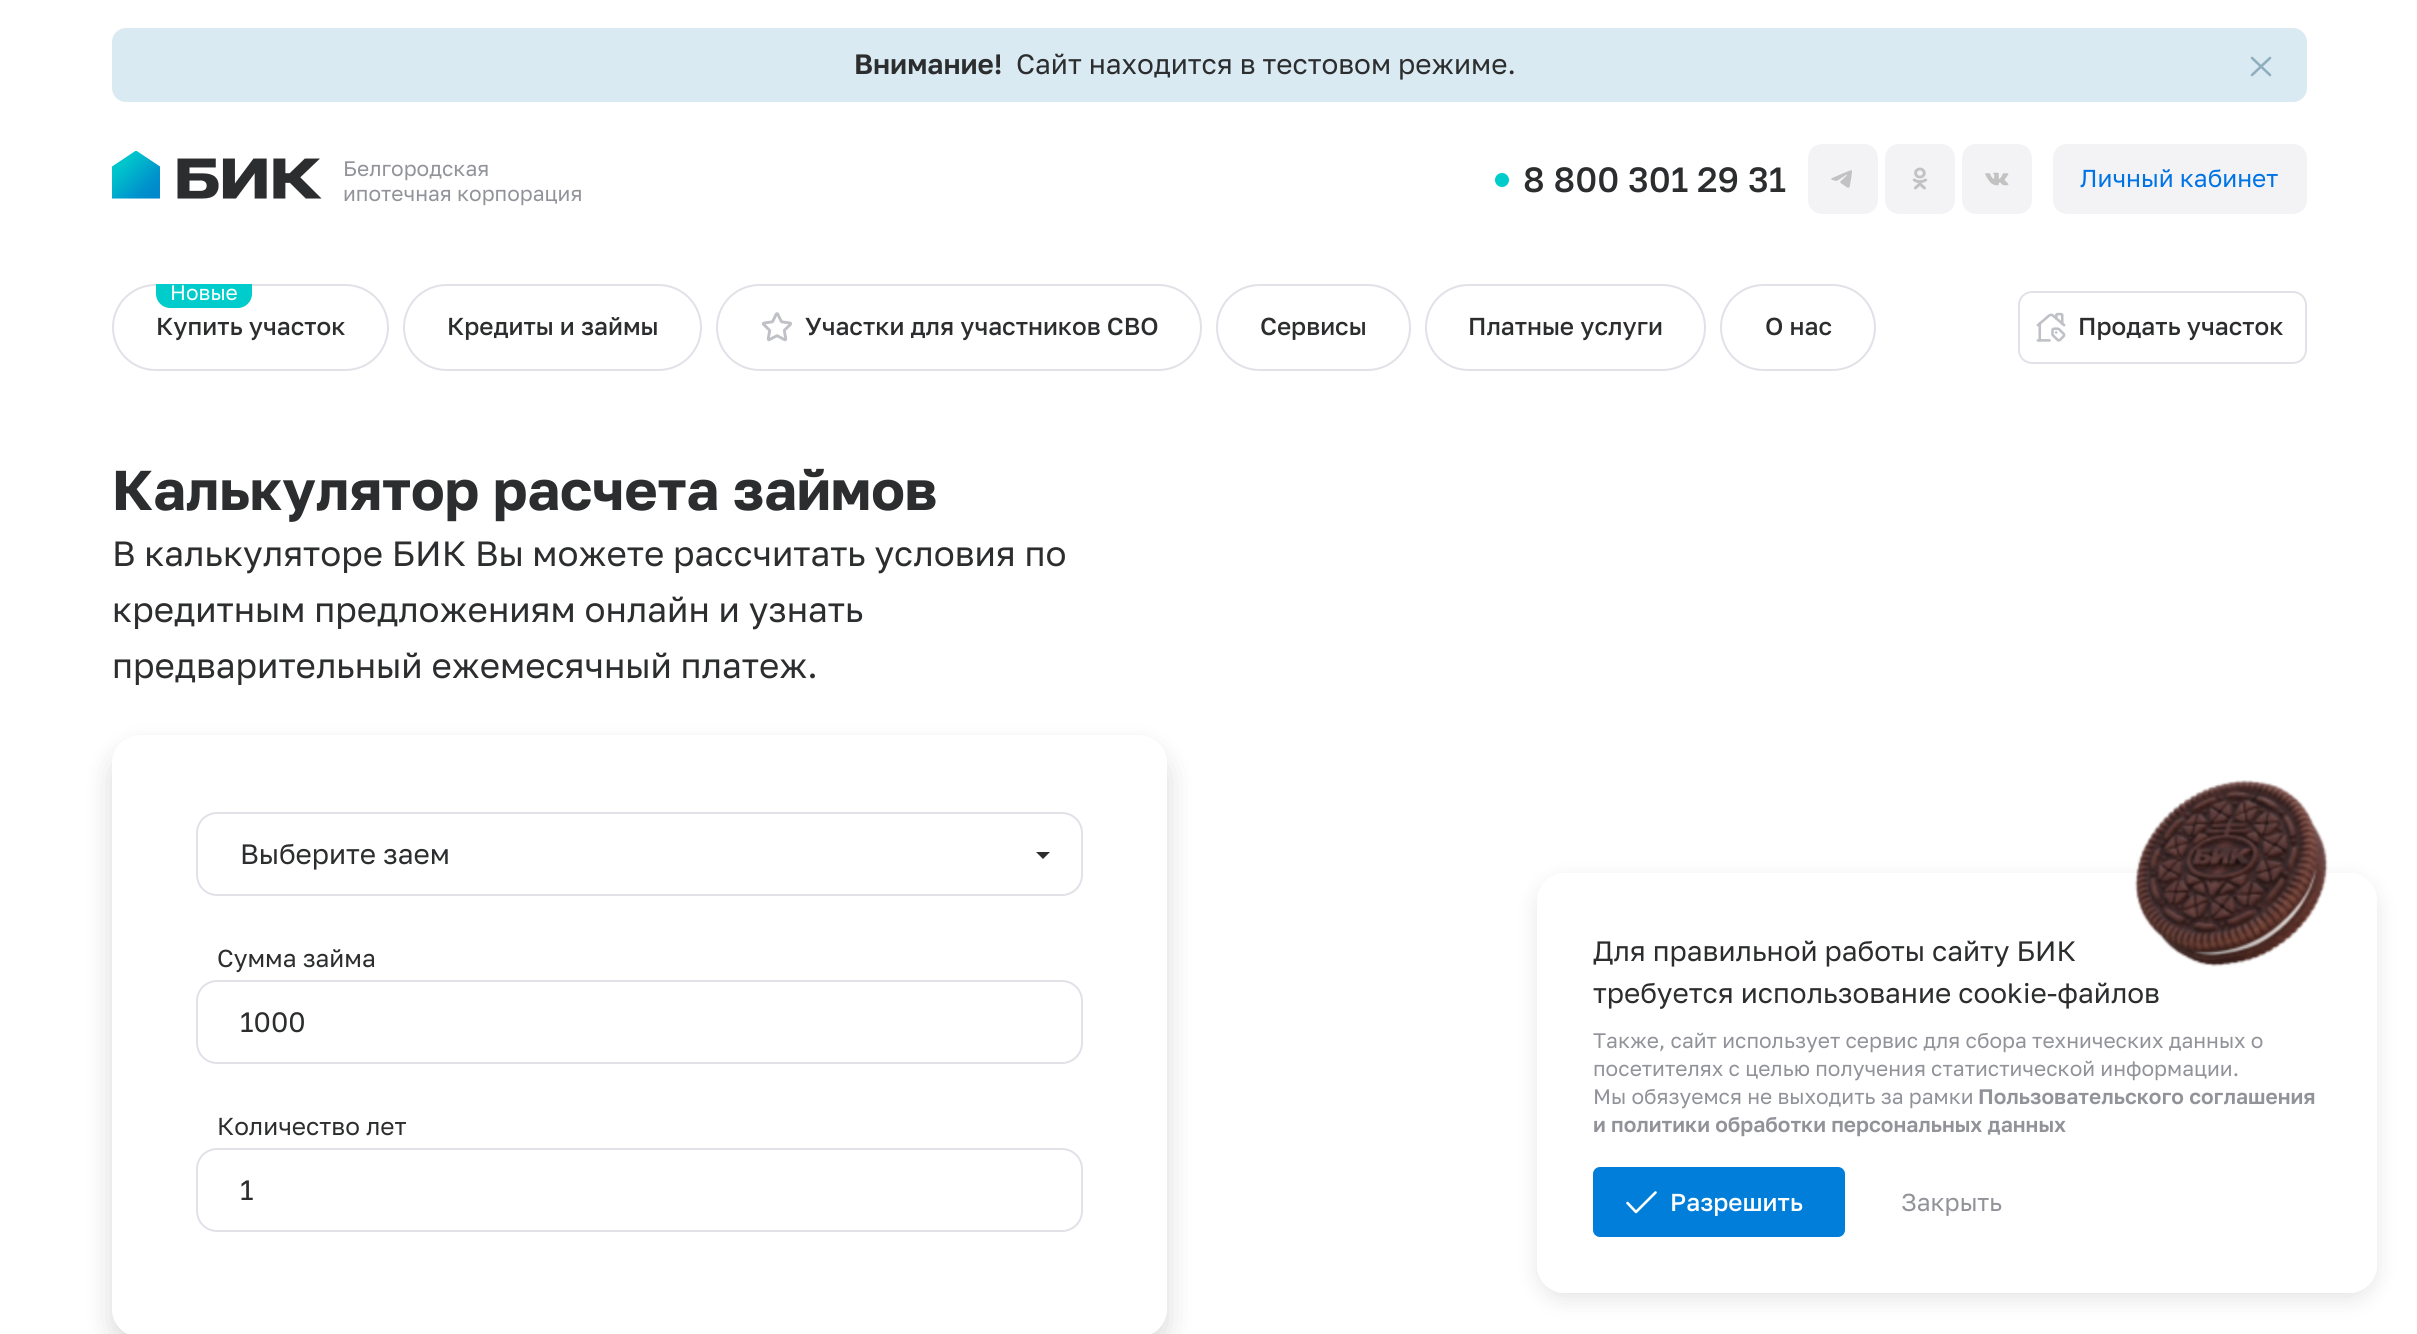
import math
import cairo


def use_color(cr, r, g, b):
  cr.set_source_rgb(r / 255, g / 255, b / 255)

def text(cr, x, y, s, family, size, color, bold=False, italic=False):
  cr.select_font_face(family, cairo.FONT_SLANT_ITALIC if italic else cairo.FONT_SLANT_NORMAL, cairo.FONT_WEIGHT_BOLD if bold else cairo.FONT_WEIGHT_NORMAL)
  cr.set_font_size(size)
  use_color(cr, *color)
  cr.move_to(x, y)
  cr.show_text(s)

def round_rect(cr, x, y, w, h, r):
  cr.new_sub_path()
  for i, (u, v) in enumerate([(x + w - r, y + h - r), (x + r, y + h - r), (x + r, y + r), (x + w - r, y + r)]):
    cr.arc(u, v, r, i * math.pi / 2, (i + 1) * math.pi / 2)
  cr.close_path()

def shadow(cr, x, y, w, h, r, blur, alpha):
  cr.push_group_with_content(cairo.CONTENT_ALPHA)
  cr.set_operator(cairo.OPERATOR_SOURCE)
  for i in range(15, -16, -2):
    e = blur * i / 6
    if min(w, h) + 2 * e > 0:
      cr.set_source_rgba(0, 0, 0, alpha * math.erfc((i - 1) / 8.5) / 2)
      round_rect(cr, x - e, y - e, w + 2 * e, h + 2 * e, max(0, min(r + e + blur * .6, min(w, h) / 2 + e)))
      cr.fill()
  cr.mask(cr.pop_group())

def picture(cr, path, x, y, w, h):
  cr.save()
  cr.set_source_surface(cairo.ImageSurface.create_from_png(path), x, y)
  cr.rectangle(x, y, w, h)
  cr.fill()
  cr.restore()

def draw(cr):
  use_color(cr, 255, 255, 255)
  cr.paint()
  use_color(cr, 218, 234, 242)
  round_rect(cr, 112, 28, 2195, 74, 14)
  cr.fill()
  cr.new_path()
  cr.move_to(2270, 58)
  cr.line_to(2252, 75)
  cr.move_to(2252, 58)
  cr.line_to(2270, 75)
  use_color(cr, 143, 175, 191)
  cr.set_line_width(2.6)
  cr.set_line_cap(cairo.LINE_CAP_ROUND)
  cr.set_line_join(cairo.LINE_JOIN_ROUND)
  cr.stroke()
  picture(cr, "img_01.png", 112, 151, 210, 48)
  use_color(cr, 0, 204, 204)
  cr.arc(1502, 180, 7, 0, 2 * math.pi)
  cr.fill()
  use_color(cr, 243, 243, 245)
  round_rect(cr, 1808, 144, 70, 70, 14)
  cr.fill()
  picture(cr, "img_02.png", 1831, 170, 21, 18)
  round_rect(cr, 1885, 144, 70, 70, 14)
  cr.fill()
  picture(cr, "img_03.png", 1912, 167, 16, 23)
  round_rect(cr, 1962, 144, 70, 70, 14)
  cr.fill()
  picture(cr, "img_04.png", 1985, 172, 24, 14)
  round_rect(cr, 2053, 144, 254, 70, 14)
  cr.fill()
  round_rect(cr, 113, 285, 275, 85, 42.5)
  use_color(cr, 224, 226, 232)
  cr.set_line_width(2)
  cr.set_line_cap(cairo.LINE_CAP_BUTT)
  cr.set_line_join(cairo.LINE_JOIN_MITER)
  cr.stroke()
  use_color(cr, 0, 204, 204)
  cr.new_path()
  cr.move_to(156, 284)
  cr.line_to(252, 284)
  cr.line_to(252, 294)
  cr.curve_to(252, 301.5, 245.5, 308, 238, 308)
  cr.line_to(170, 308)
  cr.curve_to(162.5, 308, 156, 301.5, 156, 294)
  cr.close_path()
  cr.fill()
  round_rect(cr, 404, 285, 297, 85, 42.5)
  use_color(cr, 224, 226, 232)
  cr.stroke()
  round_rect(cr, 717, 285, 484, 85, 42.5)
  cr.stroke()
  picture(cr, "img_05.png", 762, 312, 30, 30)
  round_rect(cr, 1217, 285, 193, 85, 42.5)
  cr.stroke()
  round_rect(cr, 1426, 285, 279, 85, 42.5)
  cr.stroke()
  round_rect(cr, 1721, 285, 154, 85, 42.5)
  cr.stroke()
  round_rect(cr, 2019, 292, 287, 71, 13)
  cr.stroke()
  picture(cr, "img_06.png", 2036, 312, 30, 30)
  use_color(cr, 0, 0, 0)
  shadow(cr, 112, 749, 1055, 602, 28, 14, 0.15)
  use_color(cr, 255, 255, 255)
  round_rect(cr, 112, 735, 1055, 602, 28)
  cr.fill()
  round_rect(cr, 197, 813, 885, 82, 20)
  use_color(cr, 224, 226, 232)
  cr.stroke()
  use_color(cr, 44, 45, 46)
  cr.new_path()
  cr.move_to(1036, 852)
  cr.line_to(1050, 852)
  cr.line_to(1043, 859)
  cr.close_path()
  cr.fill()
  round_rect(cr, 197, 981, 885, 82, 20)
  use_color(cr, 224, 226, 232)
  cr.stroke()
  round_rect(cr, 197, 1149, 885, 82, 20)
  cr.stroke()
  cr.save()
  cr.set_fill_rule(cairo.FILL_RULE_EVEN_ODD)
  cr.new_path()
  cr.move_to(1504, 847)
  cr.line_to(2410, 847)
  cr.line_to(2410, 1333)
  cr.line_to(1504, 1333)
  cr.close_path()
  cr.move_to(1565, 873)
  cr.line_to(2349, 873)
  cr.curve_to(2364.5, 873, 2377, 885.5, 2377, 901)
  cr.line_to(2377, 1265)
  cr.curve_to(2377, 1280.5, 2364.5, 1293, 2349, 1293)
  cr.line_to(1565, 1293)
  cr.curve_to(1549.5, 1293, 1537, 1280.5, 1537, 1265)
  cr.line_to(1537, 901)
  cr.curve_to(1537, 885.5, 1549.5, 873, 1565, 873)
  cr.close_path()
  cr.clip()
  use_color(cr, 0, 0, 0)
  shadow(cr, 1537, 880, 840, 420, 28, 10.5, 0.1)
  cr.restore()
  cr.set_source_rgba(1, 1, 1, 0.85)
  round_rect(cr, 1537, 873, 840, 420, 28)
  cr.fill()
  picture(cr, "img_07.png", 2134, 780, 194, 187)
  use_color(cr, 0, 126, 217)
  round_rect(cr, 1593, 1167, 252, 70, 7)
  cr.fill()
  cr.new_path()
  cr.move_to(1655.5, 1192.5)
  cr.line_to(1636, 1212)
  cr.line_to(1627.5, 1203)
  use_color(cr, 255, 255, 255)
  cr.set_line_width(2.6)
  cr.set_line_cap(cairo.LINE_CAP_ROUND)
  cr.set_line_join(cairo.LINE_JOIN_ROUND)
  cr.stroke()
  text(cr, 854, 74, "Внимание!", "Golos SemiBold", 28, (44, 45, 46))
  text(cr, 1016, 74, "Сайт находится в тестовом режиме.", "Golos", 28, (44, 45, 46))
  text(cr, 343, 176, "Белгородская", "Golos", 21, (145, 147, 153))
  text(cr, 343, 201, "ипотечная корпорация", "Golos", 21, (145, 147, 153))
  text(cr, 1523, 192, "8 800 301 29 31", "Golos Medium", 35, (44, 45, 46))
  text(cr, 2080, 187, "Личный кабинет", "Golos", 24.5, (0, 115, 229))
  text(cr, 170, 300, "Новые", "Golos", 21, (255, 255, 255))
  text(cr, 156, 335, "Купить участок", "Golos Medium", 24.5, (44, 45, 46))
  text(cr, 447, 335, "Кредиты и займы", "Golos Medium", 24.5, (44, 45, 46))
  text(cr, 805, 335, "Участки для участников СВО", "Golos Medium", 24.5, (44, 45, 46))
  text(cr, 1260, 335, "Сервисы", "Golos Medium", 24.5, (44, 45, 46))
  text(cr, 1468, 335, "Платные услуги", "Golos Medium", 24.5, (44, 45, 46))
  text(cr, 1765, 335, "О нас", "Golos Medium", 24.5, (44, 45, 46))
  text(cr, 2078, 335, "Продать участок", "Golos Medium", 24.5, (44, 45, 46))
  text(cr, 112, 510, "Калькулятор расчета займов", "Golos", 56, (44, 45, 46), bold=True)
  text(cr, 112, 566, "В калькуляторе БИК Вы можете рассчитать условия по", "Golos", 35, (44, 45, 46))
  text(cr, 112, 622, "кредитным предложениям онлайн и узнать", "Golos", 35, (44, 45, 46))
  text(cr, 112, 678, "предварительный ежемесячный платеж.", "Golos", 35, (44, 45, 46))
  text(cr, 240, 864, "Выберите заем", "Golos", 28, (44, 45, 46))
  text(cr, 217, 967, "Сумма займа", "Golos", 24.5, (44, 45, 46))
  text(cr, 240, 1032, "1000", "Golos", 28, (44, 45, 46))
  text(cr, 217, 1135, "Количество лет", "Golos", 24.5, (44, 45, 46))
  text(cr, 240, 1200, "1", "Golos", 28, (44, 45, 46))
  text(cr, 1593, 961, "Для правильной работы сайту БИК", "Golos", 28, (44, 45, 46))
  text(cr, 1593, 1003, "требуется использование cookie-файлов", "Golos", 28, (44, 45, 46))
  text(cr, 1593, 1048, "Также, сайт использует сервис для сбора технических данных о", "Golos", 21, (145, 147, 153))
  text(cr, 1593, 1076, "посетителях с целью получения статистической информации.", "Golos", 21, (145, 147, 153))
  text(cr, 1593, 1104, "Мы обязуемся не выходить за рамки", "Golos", 21, (145, 147, 153))
  text(cr, 1978, 1104, "Пользовательского соглашения", "Golos SemiBold", 21, (145, 147, 153))
  text(cr, 1593, 1132, "и политики обработки персональных данных", "Golos SemiBold", 21, (145, 147, 153))
  text(cr, 1670, 1211, "Разрешить", "Golos Medium", 24.5, (255, 255, 255))
  text(cr, 1901, 1211, "Закрыть", "Golos", 24.5, (145, 147, 153))


surface = cairo.ImageSurface(cairo.FORMAT_RGB24, 2417, 1334)
cr = cairo.Context(surface)
options = cairo.FontOptions()
options.set_hint_metrics(cairo.HINT_METRICS_OFF)
options.set_hint_style(cairo.HINT_STYLE_NONE)
cr.set_font_options(options)
cr.set_miter_limit(4)
draw(cr)
surface.write_to_png("out.png")
